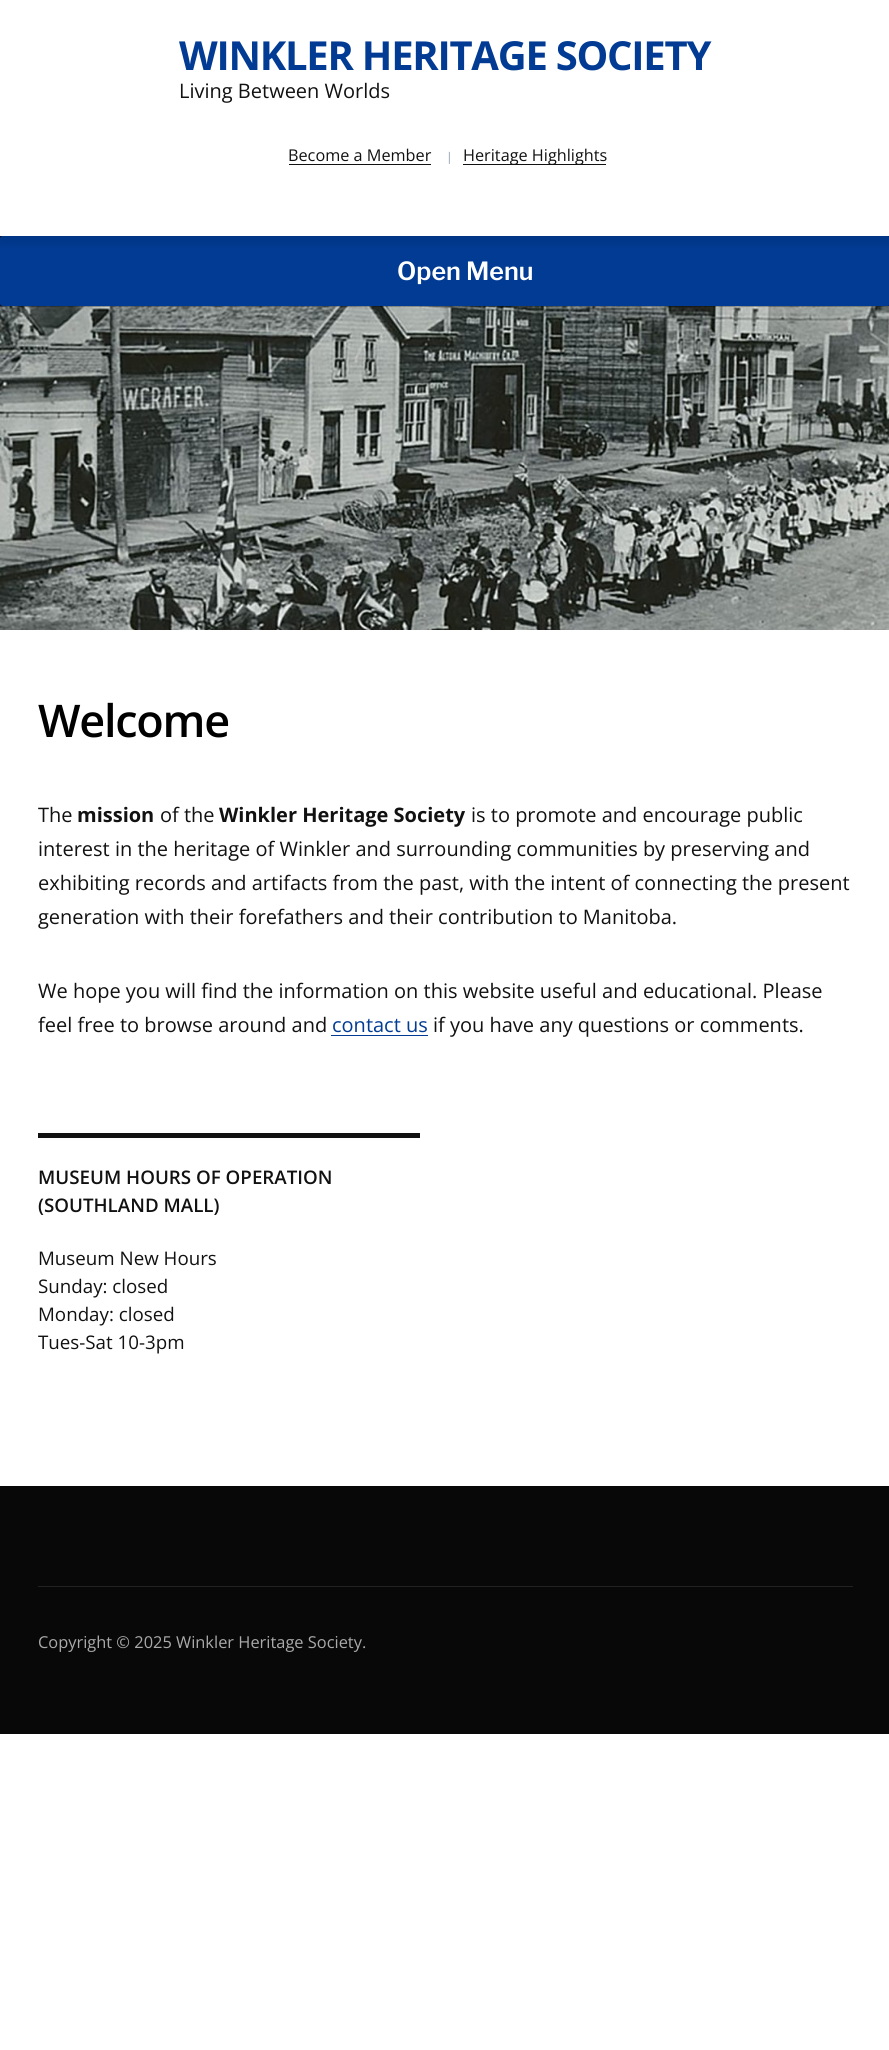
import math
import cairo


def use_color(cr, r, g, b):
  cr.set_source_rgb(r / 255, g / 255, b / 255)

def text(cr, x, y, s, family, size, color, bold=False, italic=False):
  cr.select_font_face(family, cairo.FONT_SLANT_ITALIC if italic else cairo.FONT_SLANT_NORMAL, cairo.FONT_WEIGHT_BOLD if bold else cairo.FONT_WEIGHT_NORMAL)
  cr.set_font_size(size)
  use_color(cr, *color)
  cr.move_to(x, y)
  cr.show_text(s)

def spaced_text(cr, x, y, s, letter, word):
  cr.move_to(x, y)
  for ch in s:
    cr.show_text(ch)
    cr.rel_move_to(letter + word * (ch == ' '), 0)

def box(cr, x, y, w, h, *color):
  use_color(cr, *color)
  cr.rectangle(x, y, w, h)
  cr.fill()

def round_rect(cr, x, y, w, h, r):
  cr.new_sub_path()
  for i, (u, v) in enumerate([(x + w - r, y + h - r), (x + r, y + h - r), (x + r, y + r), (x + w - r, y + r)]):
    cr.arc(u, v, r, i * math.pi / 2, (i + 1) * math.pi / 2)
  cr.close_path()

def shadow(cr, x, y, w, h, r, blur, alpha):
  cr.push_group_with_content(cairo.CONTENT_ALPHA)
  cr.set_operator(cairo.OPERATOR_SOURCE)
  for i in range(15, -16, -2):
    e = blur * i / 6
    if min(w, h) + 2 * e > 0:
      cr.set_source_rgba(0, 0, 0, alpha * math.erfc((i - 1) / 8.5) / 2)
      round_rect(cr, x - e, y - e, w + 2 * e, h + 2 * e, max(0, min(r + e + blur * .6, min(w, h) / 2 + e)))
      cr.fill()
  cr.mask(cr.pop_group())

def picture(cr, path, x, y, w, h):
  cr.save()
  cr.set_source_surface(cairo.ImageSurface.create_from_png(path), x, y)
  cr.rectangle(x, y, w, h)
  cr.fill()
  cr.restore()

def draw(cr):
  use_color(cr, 255, 255, 255)
  cr.paint()
  box(cr, 0, 236, 889, 71, 2, 2, 2)
  use_color(cr, 1, 59, 147)
  round_rect(cr, 0, 236, 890, 70, 2.5)
  cr.fill()
  cr.save()
  cr.rectangle(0, 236, 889, 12)
  cr.clip()
  use_color(cr, 0, 0, 0)
  shadow(cr, 0, 6, 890, 237, 0, 6, 0.1)
  cr.restore()
  box(cr, 289, 164, 142, 1, 17, 17, 17)
  box(cr, 463, 164, 143, 1, 17, 17, 17)
  picture(cr, "img_01.png", 0, 306, 889, 324)
  box(cr, 331, 1035, 97, 1, 1, 59, 147)
  box(cr, 38, 1133, 382, 5, 17, 17, 17)
  box(cr, 0, 1486, 889, 248, 8, 8, 8)
  box(cr, 38, 1586, 815, 1, 34, 34, 34)
  cr.select_font_face("Open Sans", cairo.FONT_SLANT_NORMAL, cairo.FONT_WEIGHT_BOLD)
  cr.set_font_size(40)
  use_color(cr, 1, 59, 147)
  spaced_text(cr, 179, 70, "WINKLER HERITAGE SOCIETY", -1.25, 0)
  text(cr, 179, 98, "Living Between Worlds", "Open Sans", 20, (17, 17, 17))
  text(cr, 288, 161, "Become a Member", "Open Sans", 16.25, (17, 17, 17))
  text(cr, 446, 161, "|", "Open Sans", 12, (136, 152, 175))
  text(cr, 463, 161, "Heritage Highlights", "Open Sans", 16.25, (17, 17, 17))
  text(cr, 397, 280, "Open Menu", "Libre Franklin SemiBold", 25, (255, 255, 255))
  cr.select_font_face("Open Sans SemiBold")
  cr.set_font_size(45)
  use_color(cr, 0, 0, 0)
  spaced_text(cr, 38, 737, "Welcome", -1.25, 0)
  text(cr, 38, 822, "The", "Open Sans", 20, (17, 17, 17))
  text(cr, 77, 822, "mission", "Open Sans", 20, (17, 17, 17), bold=True)
  text(cr, 160, 822, "of the", "Open Sans", 20, (17, 17, 17))
  text(cr, 219, 822, "Winkler Heritage Society", "Open Sans", 20, (17, 17, 17), bold=True)
  text(cr, 471, 822, "is to promote and encourage public", "Open Sans", 20, (17, 17, 17))
  text(cr, 38, 856, "interest in the heritage of Winkler and surrounding communities by preserving and", "Open Sans", 20, (17, 17, 17))
  text(cr, 38, 890, "exhibiting records and artifacts from the past, with the intent of connecting the present", "Open Sans", 20, (17, 17, 17))
  text(cr, 38, 924, "generation with their forefathers and their contribution to Manitoba.", "Open Sans", 20, (17, 17, 17))
  text(cr, 38, 998, "We hope you will find the information on this website useful and educational. Please", "Open Sans", 20, (17, 17, 17))
  text(cr, 38, 1032, "feel free to browse around and", "Open Sans", 20, (17, 17, 17))
  text(cr, 332, 1032, "contact us", "Open Sans", 20, (1, 59, 147))
  text(cr, 433, 1032, "if you have any questions or comments.", "Open Sans", 20, (17, 17, 17))
  text(cr, 38, 1184, "MUSEUM HOURS OF OPERATION", "Open Sans SemiBold", 18.75, (17, 17, 17))
  text(cr, 38, 1212, "(SOUTHLAND MALL)", "Open Sans SemiBold", 18.75, (17, 17, 17))
  text(cr, 38, 1265, "Museum New Hours", "Open Sans", 18.75, (17, 17, 17))
  text(cr, 38, 1293, "Sunday: closed", "Open Sans", 18.75, (17, 17, 17))
  text(cr, 38, 1321, "Monday: closed", "Open Sans", 18.75, (17, 17, 17))
  text(cr, 38, 1349, "Tues-Sat 10-3pm", "Open Sans", 18.75, (17, 17, 17))
  text(cr, 38, 1648, "Copyright © 2025 Winkler Heritage Society.", "Open Sans", 16.4, (170, 170, 170))


surface = cairo.ImageSurface(cairo.FORMAT_RGB24, 889, 2050)
cr = cairo.Context(surface)
options = cairo.FontOptions()
options.set_hint_metrics(cairo.HINT_METRICS_OFF)
options.set_hint_style(cairo.HINT_STYLE_NONE)
cr.set_font_options(options)
cr.set_miter_limit(4)
draw(cr)
surface.write_to_png("out.png")
